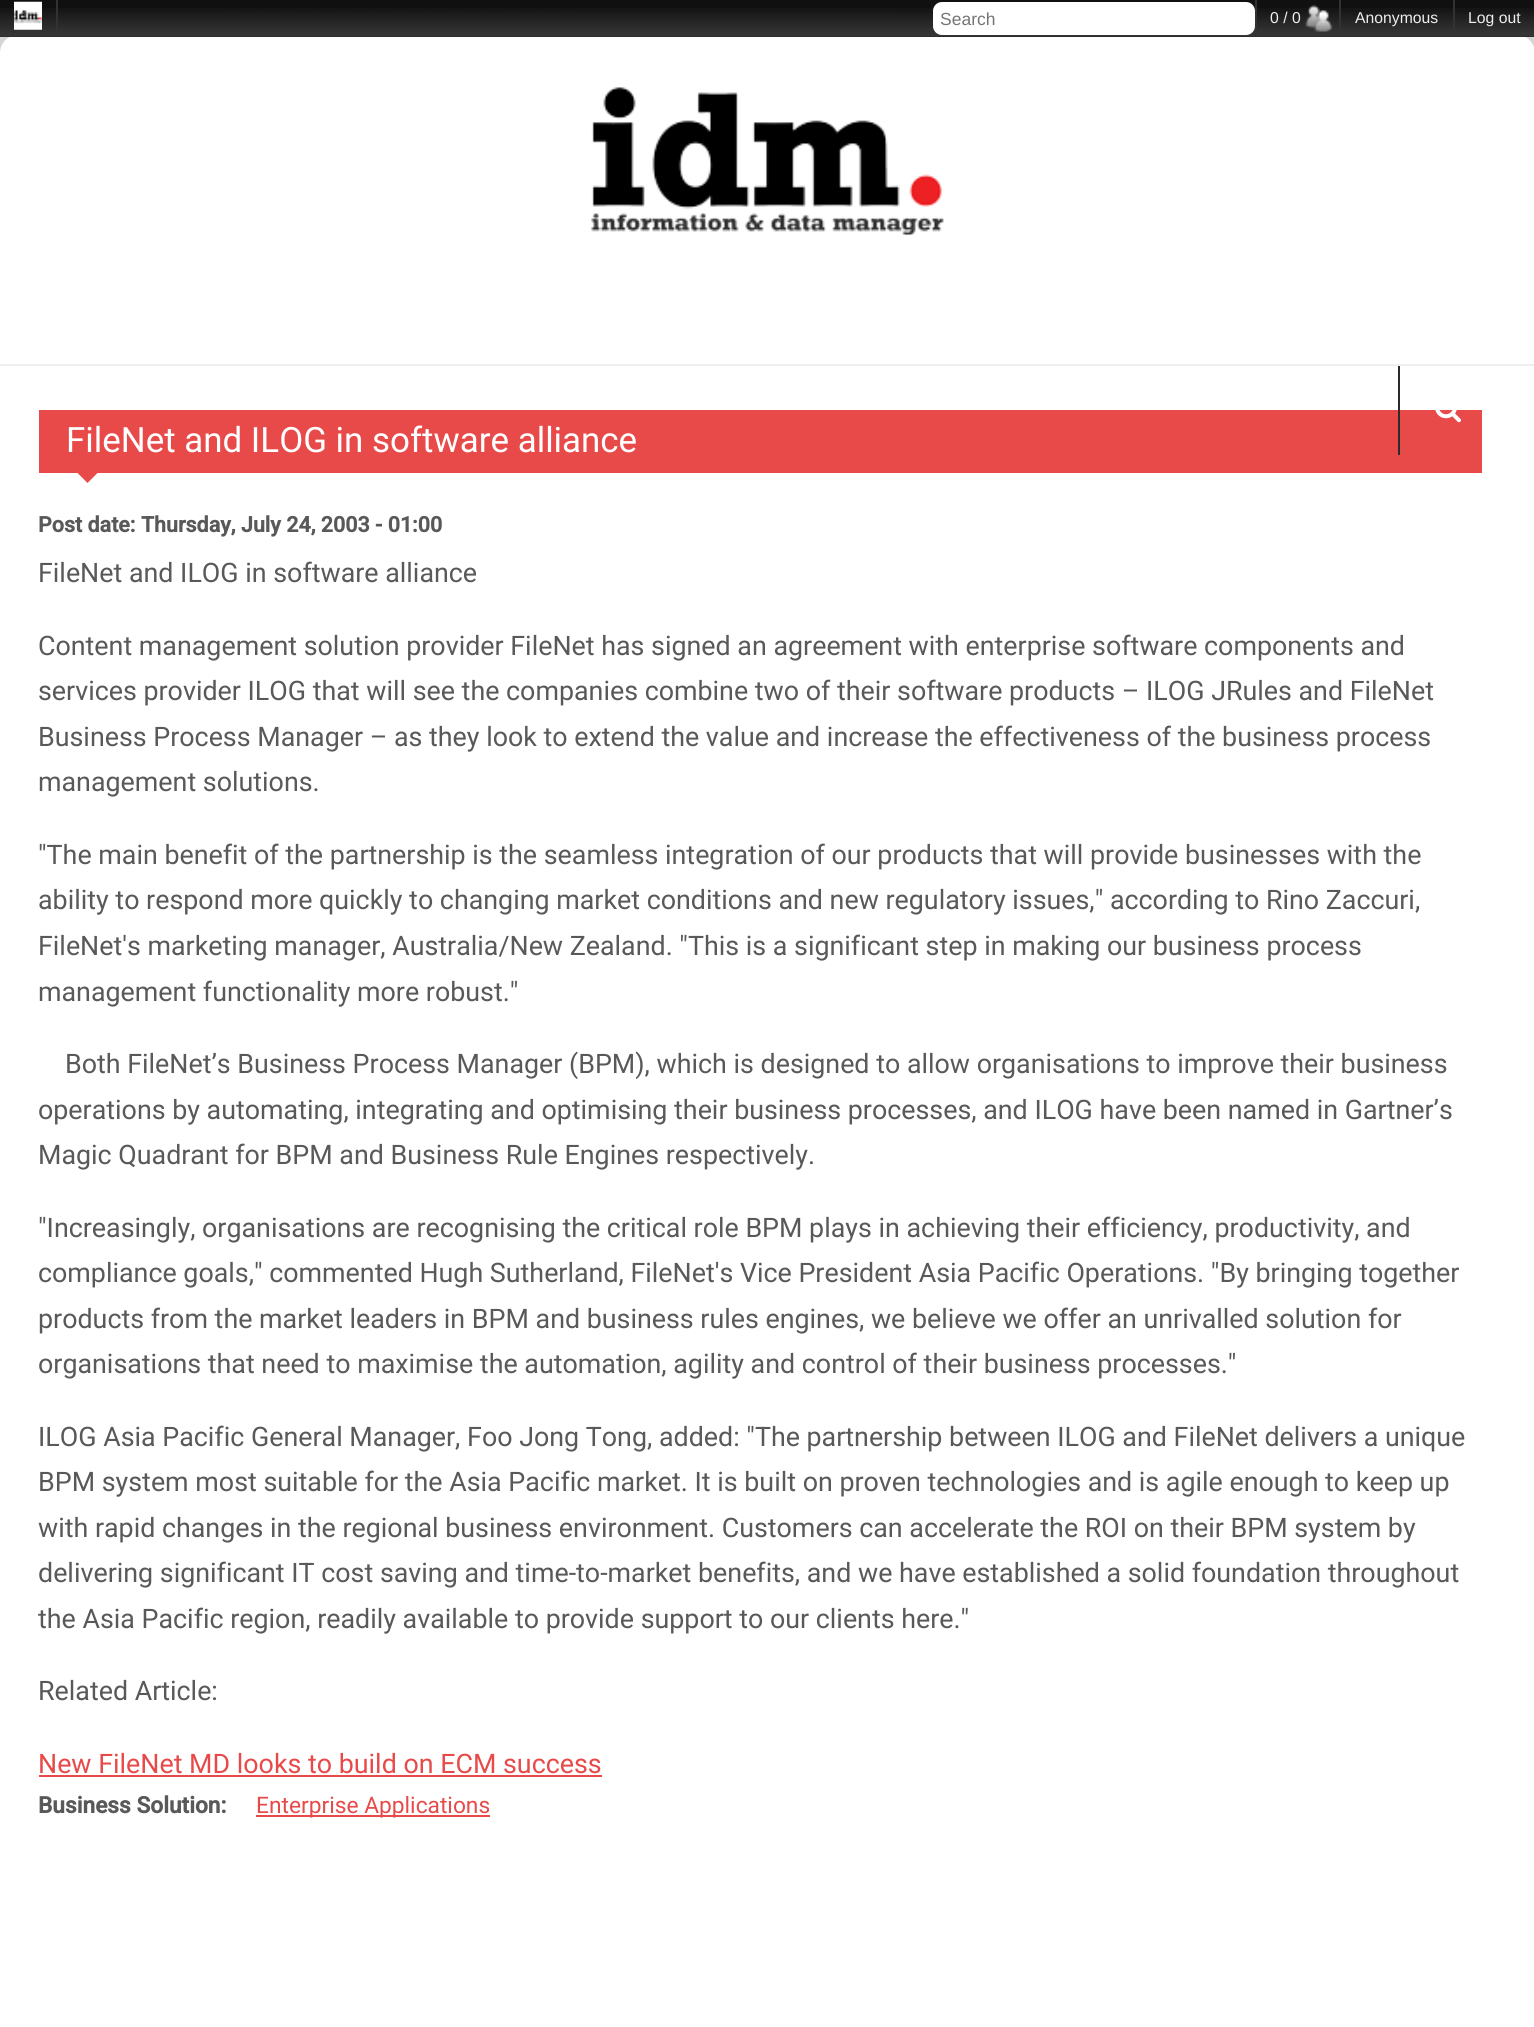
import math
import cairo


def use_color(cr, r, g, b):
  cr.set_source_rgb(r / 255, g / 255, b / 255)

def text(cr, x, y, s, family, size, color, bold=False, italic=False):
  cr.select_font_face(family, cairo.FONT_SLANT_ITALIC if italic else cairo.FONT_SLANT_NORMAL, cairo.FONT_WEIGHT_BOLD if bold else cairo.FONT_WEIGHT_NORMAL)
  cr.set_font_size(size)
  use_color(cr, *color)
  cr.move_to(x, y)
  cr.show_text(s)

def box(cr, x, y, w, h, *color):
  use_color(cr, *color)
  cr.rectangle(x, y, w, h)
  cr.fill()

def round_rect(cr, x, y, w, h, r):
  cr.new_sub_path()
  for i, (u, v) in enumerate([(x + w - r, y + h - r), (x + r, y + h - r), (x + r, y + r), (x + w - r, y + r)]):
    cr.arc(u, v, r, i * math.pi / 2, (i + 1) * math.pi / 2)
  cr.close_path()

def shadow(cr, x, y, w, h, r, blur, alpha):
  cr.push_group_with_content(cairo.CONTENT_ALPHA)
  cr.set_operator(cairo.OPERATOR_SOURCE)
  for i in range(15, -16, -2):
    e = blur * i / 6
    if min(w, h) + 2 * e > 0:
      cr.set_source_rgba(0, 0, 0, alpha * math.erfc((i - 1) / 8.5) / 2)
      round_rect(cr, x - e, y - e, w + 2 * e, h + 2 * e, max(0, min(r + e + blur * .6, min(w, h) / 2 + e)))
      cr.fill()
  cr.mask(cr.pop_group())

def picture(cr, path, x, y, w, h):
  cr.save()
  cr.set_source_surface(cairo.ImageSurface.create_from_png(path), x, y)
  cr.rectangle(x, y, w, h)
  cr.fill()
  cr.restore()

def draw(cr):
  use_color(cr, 221, 221, 221)
  cr.paint()
  use_color(cr, 0, 0, 0)
  shadow(cr, 0, 35, 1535, 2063, 18, 17.5, 0.1)
  use_color(cr, 255, 255, 255)
  round_rect(cr, 0, 35, 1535, 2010, 18)
  cr.fill()
  box(cr, 0, 0, 1534, 37, 16, 16, 16)
  picture(cr, "img_01.png", 0, 8, 1534, 29)
  box(cr, 56, 0, 2, 37, 50, 50, 50)
  picture(cr, "img_02.png", 14, 1, 28, 29)
  use_color(cr, 255, 255, 255)
  round_rect(cr, 933, 2, 322, 33, 9)
  cr.fill()
  picture(cr, "img_03.png", 1305, 5, 28, 27)
  box(cr, 1255, 0, 2, 37, 50, 50, 50)
  box(cr, 1339, 0, 2, 37, 50, 50, 50)
  box(cr, 1453, 0, 2, 37, 50, 50, 50)
  picture(cr, "img_04.png", 591, 87, 353, 149)
  box(cr, 0, 364, 1534, 2, 238, 238, 238)
  box(cr, 39, 410, 1443, 63, 232, 74, 74)
  box(cr, 1398, 366, 2, 89, 43, 43, 43)
  picture(cr, "img_05.png", 1435, 410, 26, 13)
  use_color(cr, 232, 74, 74)
  cr.new_path()
  cr.move_to(77, 472.5)
  cr.line_to(98, 472.5)
  cr.line_to(87.5, 483)
  cr.close_path()
  cr.fill()
  box(cr, 39, 1775, 563, 2, 232, 74, 74)
  box(cr, 256, 1815, 234, 2, 232, 74, 74)
  text(cr, 940, 25, "Search", "Liberation Sans", 17.5, (117, 117, 117))
  text(cr, 1270, 23, "0 / 0", "Liberation Sans", 15.75, (238, 238, 238))
  text(cr, 1355, 23, "Anonymous", "Liberation Sans", 15.75, (238, 238, 238))
  text(cr, 1468, 23, "Log out", "Liberation Sans", 15.75, (238, 238, 238))
  text(cr, 66, 452, "FileNet and ILOG in software alliance", "Roboto", 34.9, (255, 255, 255))
  text(cr, 38, 532, "Post date: Thursday, July 24, 2003 - 01:00", "Roboto", 21.5, (89, 89, 89), bold=True)
  text(cr, 38, 582, "FileNet and ILOG in software alliance", "Roboto", 26.83, (89, 89, 89))
  text(cr, 38, 655, "Content management solution provider FileNet has signed an agreement with enterprise software components and", "Roboto", 26.83, (89, 89, 89))
  text(cr, 38, 700, "services provider ILOG that will see the companies combine two of their software products – ILOG JRules and FileNet", "Roboto", 26.83, (89, 89, 89))
  text(cr, 38, 746, "Business Process Manager – as they look to extend the value and increase the effectiveness of the business process", "Roboto", 26.83, (89, 89, 89))
  text(cr, 38, 791, "management solutions.", "Roboto", 26.83, (89, 89, 89))
  text(cr, 38, 864, "\"The main benefit of the partnership is the seamless integration of our products that will provide businesses with the", "Roboto", 26.83, (89, 89, 89))
  text(cr, 38, 909, "ability to respond more quickly to changing market conditions and new regulatory issues,\" according to Rino Zaccuri,", "Roboto", 26.83, (89, 89, 89))
  text(cr, 38, 955, "FileNet's marketing manager, Australia/New Zealand. \"This is a significant step in making our business process", "Roboto", 26.83, (89, 89, 89))
  text(cr, 38, 1001, "management functionality more robust.\"", "Roboto", 26.83, (89, 89, 89))
  text(cr, 65, 1073, "Both FileNet’s Business Process Manager (BPM), which is designed to allow organisations to improve their business", "Roboto", 26.83, (89, 89, 89))
  text(cr, 38, 1119, "operations by automating, integrating and optimising their business processes, and ILOG have been named in Gartner’s", "Roboto", 26.83, (89, 89, 89))
  text(cr, 38, 1164, "Magic Quadrant for BPM and Business Rule Engines respectively.", "Roboto", 26.83, (89, 89, 89))
  text(cr, 38, 1237, "\"Increasingly, organisations are recognising the critical role BPM plays in achieving their efficiency, productivity, and", "Roboto", 26.83, (89, 89, 89))
  text(cr, 38, 1282, "compliance goals,\" commented Hugh Sutherland, FileNet's Vice President Asia Pacific Operations. \"By bringing together", "Roboto", 26.83, (89, 89, 89))
  text(cr, 38, 1328, "products from the market leaders in BPM and business rules engines, we believe we offer an unrivalled solution for", "Roboto", 26.83, (89, 89, 89))
  text(cr, 38, 1373, "organisations that need to maximise the automation, agility and control of their business processes.\"", "Roboto", 26.83, (89, 89, 89))
  text(cr, 38, 1446, "ILOG Asia Pacific General Manager, Foo Jong Tong, added: \"The partnership between ILOG and FileNet delivers a unique", "Roboto", 26.83, (89, 89, 89))
  text(cr, 38, 1491, "BPM system most suitable for the Asia Pacific market. It is built on proven technologies and is agile enough to keep up", "Roboto", 26.83, (89, 89, 89))
  text(cr, 38, 1537, "with rapid changes in the regional business environment. Customers can accelerate the ROI on their BPM system by", "Roboto", 26.83, (89, 89, 89))
  text(cr, 38, 1582, "delivering significant IT cost saving and time-to-market benefits, and we have established a solid foundation throughout", "Roboto", 26.83, (89, 89, 89))
  text(cr, 38, 1628, "the Asia Pacific region, readily available to provide support to our clients here.\"", "Roboto", 26.83, (89, 89, 89))
  text(cr, 38, 1700, "Related Article:", "Roboto", 26.83, (89, 89, 89))
  text(cr, 38, 1773, "New FileNet MD looks to build on ECM success", "Roboto", 26.83, (232, 74, 74))
  text(cr, 38, 1813, "Business Solution:", "Roboto", 22.75, (89, 89, 89), bold=True)
  text(cr, 256, 1813, "Enterprise Applications", "Roboto", 22.75, (232, 74, 74))


surface = cairo.ImageSurface(cairo.FORMAT_RGB24, 1534, 2027)
cr = cairo.Context(surface)
options = cairo.FontOptions()
options.set_hint_metrics(cairo.HINT_METRICS_OFF)
options.set_hint_style(cairo.HINT_STYLE_NONE)
cr.set_font_options(options)
cr.set_miter_limit(4)
draw(cr)
surface.write_to_png("out.png")
